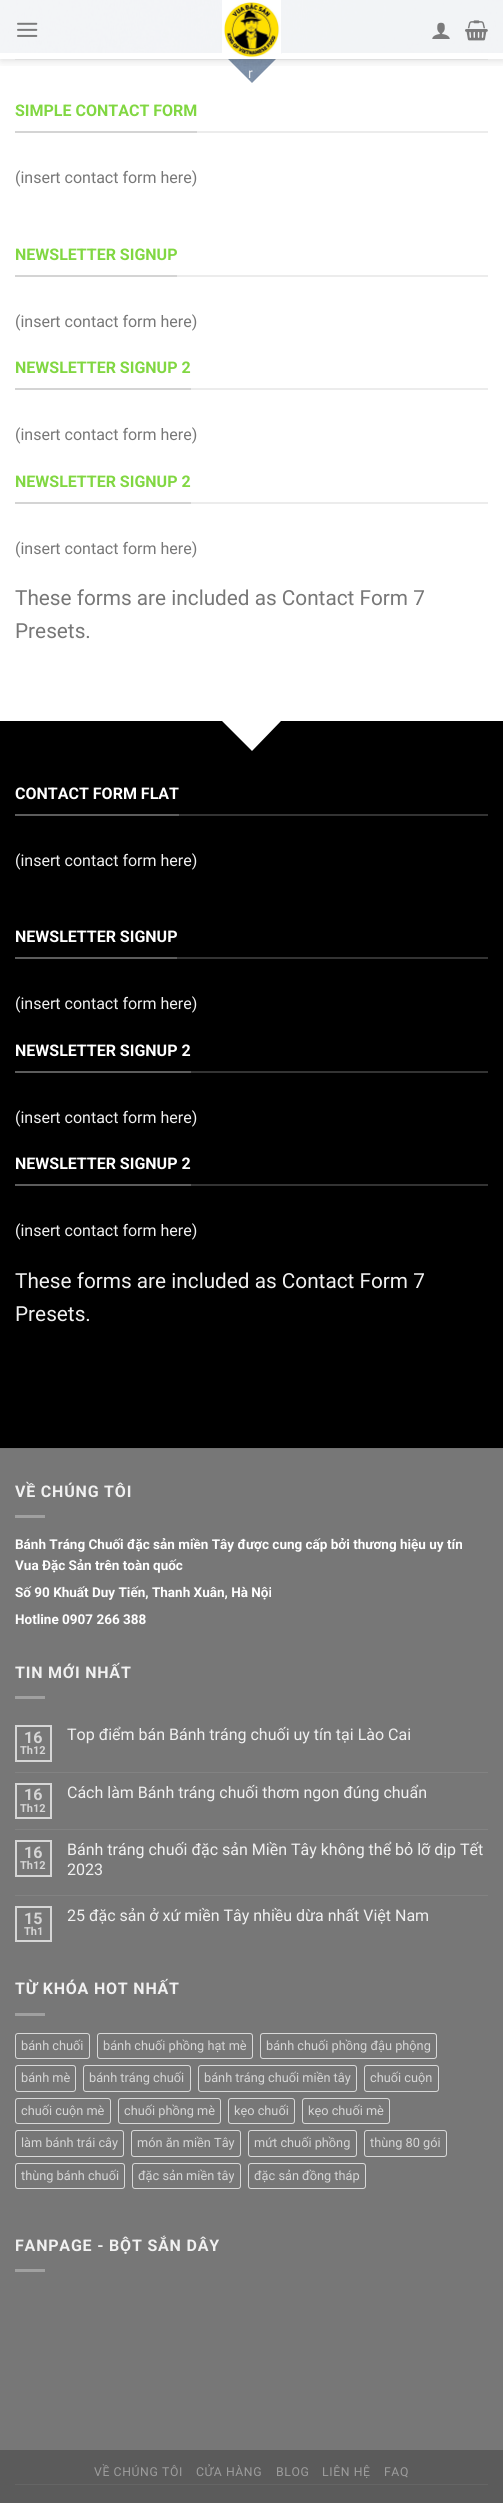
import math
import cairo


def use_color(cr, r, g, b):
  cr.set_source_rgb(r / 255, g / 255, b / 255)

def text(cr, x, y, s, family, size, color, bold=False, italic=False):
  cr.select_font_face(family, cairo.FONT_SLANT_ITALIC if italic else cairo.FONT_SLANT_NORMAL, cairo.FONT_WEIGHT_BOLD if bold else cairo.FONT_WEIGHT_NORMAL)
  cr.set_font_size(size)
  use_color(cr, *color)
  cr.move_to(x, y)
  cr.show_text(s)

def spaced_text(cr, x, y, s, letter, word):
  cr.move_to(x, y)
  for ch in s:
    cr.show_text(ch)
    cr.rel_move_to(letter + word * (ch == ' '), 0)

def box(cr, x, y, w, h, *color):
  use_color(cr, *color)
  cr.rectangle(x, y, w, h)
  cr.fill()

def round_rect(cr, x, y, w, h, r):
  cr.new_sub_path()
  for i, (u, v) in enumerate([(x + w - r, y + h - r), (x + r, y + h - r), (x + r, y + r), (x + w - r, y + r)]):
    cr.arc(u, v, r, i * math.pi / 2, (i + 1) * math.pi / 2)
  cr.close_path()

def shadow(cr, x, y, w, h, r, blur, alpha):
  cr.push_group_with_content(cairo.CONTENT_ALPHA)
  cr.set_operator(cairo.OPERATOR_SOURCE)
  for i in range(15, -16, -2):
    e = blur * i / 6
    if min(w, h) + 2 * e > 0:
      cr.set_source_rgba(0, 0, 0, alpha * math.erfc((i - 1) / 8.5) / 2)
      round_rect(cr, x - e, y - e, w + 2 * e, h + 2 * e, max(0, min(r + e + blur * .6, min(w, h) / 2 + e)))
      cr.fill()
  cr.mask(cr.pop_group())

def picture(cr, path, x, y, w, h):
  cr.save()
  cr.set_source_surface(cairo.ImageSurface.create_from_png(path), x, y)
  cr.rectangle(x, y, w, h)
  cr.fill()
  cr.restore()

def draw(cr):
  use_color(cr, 255, 255, 255)
  cr.paint()
  picture(cr, "img_05.png", 0, 0, 503, 83)
  box(cr, 0, 1449, 503, 1001, 119, 119, 119)
  box(cr, 0, 1448, 503, 1, 113, 113, 113)
  box(cr, 15, 1515, 30, 3, 160, 160, 160)
  box(cr, 15, 1696, 30, 3, 160, 160, 160)
  cr.rectangle(16, 1726, 35, 35)
  use_color(cr, 214, 214, 214)
  cr.stroke()
  box(cr, 15, 1772, 473, 1, 130, 130, 130)
  cr.rectangle(16, 1784, 35, 34)
  use_color(cr, 214, 214, 214)
  cr.stroke()
  box(cr, 15, 1829, 473, 1, 130, 130, 130)
  cr.rectangle(16, 1841, 35, 35)
  use_color(cr, 214, 214, 214)
  cr.stroke()
  box(cr, 15, 1895, 473, 1, 130, 130, 130)
  cr.rectangle(16, 1907, 35, 34)
  use_color(cr, 214, 214, 214)
  cr.stroke()
  box(cr, 15, 2013, 30, 3, 160, 160, 160)
  round_rect(cr, 15.5, 2033.5, 74, 25, 2.5)
  use_color(cr, 217, 217, 217)
  cr.set_line_width(1)
  cr.stroke()
  round_rect(cr, 97.5, 2033.5, 155, 25, 2.5)
  cr.stroke()
  round_rect(cr, 260.5, 2033.5, 176, 25, 2.5)
  cr.stroke()
  round_rect(cr, 15.5, 2065.5, 60, 26, 2.5)
  cr.stroke()
  round_rect(cr, 83.5, 2065.5, 107, 26, 2.5)
  cr.stroke()
  round_rect(cr, 198.5, 2065.5, 158, 26, 2.5)
  cr.stroke()
  round_rect(cr, 364.5, 2065.5, 74, 26, 2.5)
  cr.stroke()
  round_rect(cr, 15.5, 2098.5, 95, 25, 2.5)
  cr.stroke()
  round_rect(cr, 118.5, 2098.5, 102, 25, 2.5)
  cr.stroke()
  round_rect(cr, 228.5, 2098.5, 66, 25, 2.5)
  cr.stroke()
  round_rect(cr, 302.5, 2098.5, 87, 25, 2.5)
  cr.stroke()
  round_rect(cr, 15.5, 2130.5, 108, 26, 2.5)
  cr.stroke()
  round_rect(cr, 131.5, 2130.5, 109, 26, 2.5)
  cr.stroke()
  round_rect(cr, 248.5, 2130.5, 108, 26, 2.5)
  cr.stroke()
  round_rect(cr, 364.5, 2130.5, 82, 26, 2.5)
  cr.stroke()
  round_rect(cr, 15.5, 2163.5, 109, 25, 2.5)
  cr.stroke()
  round_rect(cr, 132.5, 2163.5, 108, 25, 2.5)
  cr.stroke()
  round_rect(cr, 248.5, 2163.5, 117, 25, 2.5)
  cr.stroke()
  box(cr, 15, 2269, 30, 3, 160, 160, 160)
  box(cr, 0, 2450, 503, 53, 91, 91, 91)
  box(cr, 15, 2484, 473, 1, 101, 101, 101)
  text(cr, 248, 78, "r", "Roboto", 14, (233, 234, 236))
  use_color(cr, 255, 255, 255)
  cr.new_path()
  cr.move_to(0, 53)
  cr.line_to(0, 751)
  cr.line_to(503, 751)
  cr.line_to(503, 53)
  cr.line_to(282, 53)
  cr.line_to(252, 83)
  cr.line_to(222, 53)
  cr.close_path()
  cr.fill()
  cr.save()
  cr.rectangle(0, 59, 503, 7)
  cr.clip()
  use_color(cr, 0, 0, 0)
  shadow(cr, 1, 1, 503, 59, 0, 5, 0.15)
  cr.restore()
  cr.set_source_rgba(0.467, 0.467, 0.467, 0.1)
  cr.rectangle(15, 59, 473, 1)
  cr.fill()
  cr.set_source_rgba(1, 1, 1, 0.9)
  cr.rectangle(0, 0, 503, 59)
  cr.fill()
  picture(cr, "img_04.png", 465, 20, 23, 21)
  picture(cr, "img_03.png", 432, 22, 18, 17)
  picture(cr, "img_01.png", 17, 22, 21, 15)
  picture(cr, "img_02.png", 222, 0, 59, 59)
  box(cr, 197, 131, 291, 2, 236, 236, 236)
  box(cr, 15, 131, 182, 2, 212, 212, 212)
  text(cr, 15, 116, "SIMPLE CONTACT FORM", "Roboto", 16, (129, 215, 66), bold=True)
  text(cr, 15, 183, "(insert contact form here)", "Roboto", 16, (119, 119, 119))
  box(cr, 177, 275, 311, 2, 236, 236, 236)
  box(cr, 15, 275, 162, 2, 212, 212, 212)
  text(cr, 15, 260, "NEWSLETTER SIGNUP", "Roboto", 16, (129, 215, 66), bold=True)
  text(cr, 15, 327, "(insert contact form here)", "Roboto", 16, (119, 119, 119))
  box(cr, 191, 388, 297, 2, 236, 236, 236)
  box(cr, 15, 388, 176, 2, 212, 212, 212)
  text(cr, 15, 373, "NEWSLETTER SIGNUP 2", "Roboto", 16, (129, 215, 66), bold=True)
  text(cr, 15, 440, "(insert contact form here)", "Roboto", 16, (119, 119, 119))
  box(cr, 191, 502, 297, 2, 236, 236, 236)
  box(cr, 15, 502, 176, 2, 212, 212, 212)
  text(cr, 15, 487, "NEWSLETTER SIGNUP 2", "Roboto", 16, (129, 215, 66), bold=True)
  text(cr, 15, 554, "(insert contact form here)", "Roboto", 16, (119, 119, 119))
  text(cr, 15, 605, "These forms are included as Contact Form 7", "Roboto", 20.75, (119, 119, 119))
  text(cr, 15, 638, "Presets.", "Roboto", 20.75, (119, 119, 119))
  use_color(cr, 0, 0, 0)
  cr.new_path()
  cr.move_to(0, 721)
  cr.line_to(0, 1448)
  cr.line_to(503, 1448)
  cr.line_to(503, 721)
  cr.line_to(281, 721)
  cr.line_to(252, 751)
  cr.line_to(222, 721)
  cr.close_path()
  cr.fill()
  box(cr, 179, 814, 309, 2, 51, 51, 51)
  box(cr, 15, 814, 164, 2, 92, 92, 92)
  text(cr, 15, 799, "CONTACT FORM FLAT", "Roboto", 16, (255, 255, 255), bold=True)
  text(cr, 15, 866, "(insert contact form here)", "Roboto", 16, (241, 241, 241))
  box(cr, 177, 957, 311, 2, 51, 51, 51)
  box(cr, 15, 957, 162, 2, 92, 92, 92)
  text(cr, 15, 942, "NEWSLETTER SIGNUP", "Roboto", 16, (255, 255, 255), bold=True)
  text(cr, 15, 1009, "(insert contact form here)", "Roboto", 16, (241, 241, 241))
  box(cr, 191, 1071, 297, 2, 51, 51, 51)
  box(cr, 15, 1071, 176, 2, 92, 92, 92)
  text(cr, 15, 1056, "NEWSLETTER SIGNUP 2", "Roboto", 16, (255, 255, 255), bold=True)
  text(cr, 15, 1123, "(insert contact form here)", "Roboto", 16, (241, 241, 241))
  box(cr, 191, 1184, 297, 2, 51, 51, 51)
  box(cr, 15, 1184, 176, 2, 92, 92, 92)
  text(cr, 15, 1169, "NEWSLETTER SIGNUP 2", "Roboto", 16, (255, 255, 255), bold=True)
  text(cr, 15, 1236, "(insert contact form here)", "Roboto", 16, (241, 241, 241))
  text(cr, 15, 1288, "These forms are included as Contact Form 7", "Roboto", 20.75, (241, 241, 241))
  text(cr, 15, 1321, "Presets.", "Roboto", 20.75, (241, 241, 241))
  cr.select_font_face("Roboto", cairo.FONT_SLANT_NORMAL, cairo.FONT_WEIGHT_BOLD)
  cr.set_font_size(16)
  spaced_text(cr, 15, 1497, "VỀ CHÚNG TÔI", 0.8, 0)
  text(cr, 15, 1549, "Bánh Tráng Chuối đặc sản miền Tây được cung cấp bởi thương hiệu uy tín", "Roboto", 13.5, (255, 255, 255), bold=True)
  text(cr, 15, 1570, "Vua Đặc Sản trên toàn quốc", "Roboto", 13.5, (255, 255, 255), bold=True)
  text(cr, 15, 1597, "Số 90 Khuất Duy Tiến, Thanh Xuân, Hà Nội", "Roboto", 13.5, (255, 255, 255), bold=True)
  text(cr, 15, 1624, "Hotline 0907 266 388", "Roboto", 13.5, (255, 255, 255), bold=True)
  cr.set_font_size(16)
  use_color(cr, 241, 241, 241)
  spaced_text(cr, 15, 1678, "TIN MỚI NHẤT", 0.8, 0)
  text(cr, 24, 1743, "16", "Roboto", 16, (214, 214, 214), bold=True)
  text(cr, 20, 1754, "Th12", "Roboto", 11, (214, 214, 214), bold=True)
  text(cr, 67, 1740, "Top điểm bán Bánh tráng chuối uy tín tại Lào Cai", "Roboto", 16, (241, 241, 241))
  text(cr, 24, 1800, "16", "Roboto", 16, (214, 214, 214), bold=True)
  text(cr, 20, 1812, "Th12", "Roboto", 11, (214, 214, 214), bold=True)
  text(cr, 67, 1798, "Cách làm Bánh tráng chuối thơm ngon đúng chuẩn", "Roboto", 16, (241, 241, 241))
  text(cr, 24, 1858, "16", "Roboto", 16, (214, 214, 214), bold=True)
  text(cr, 20, 1869, "Th12", "Roboto", 11, (214, 214, 214), bold=True)
  text(cr, 67, 1855, "Bánh tráng chuối đặc sản Miền Tây không thể bỏ lỡ dịp Tết", "Roboto", 16, (241, 241, 241))
  text(cr, 67, 1875, "2023", "Roboto", 16, (241, 241, 241))
  text(cr, 24, 1924, "15", "Roboto", 16, (214, 214, 214), bold=True)
  text(cr, 24, 1935, "Th1", "Roboto", 11, (214, 214, 214), bold=True)
  text(cr, 67, 1921, "25 đặc sản ở xứ miền Tây nhiều dừa nhất Việt Nam", "Roboto", 16, (241, 241, 241))
  cr.select_font_face("Roboto", cairo.FONT_SLANT_NORMAL, cairo.FONT_WEIGHT_BOLD)
  spaced_text(cr, 15, 1994, "TỪ KHÓA HOT NHẤT", 0.8, 0)
  text(cr, 21, 2050, "bánh chuối", "Roboto", 12.75, (214, 214, 214))
  text(cr, 103, 2050, "bánh chuối phồng hạt mè", "Roboto", 12.75, (214, 214, 214))
  text(cr, 266, 2050, "bánh chuối phồng đậu phộng", "Roboto", 12.75, (214, 214, 214))
  text(cr, 21, 2082, "bánh mè", "Roboto", 12.75, (214, 214, 214))
  text(cr, 89, 2082, "bánh tráng chuối", "Roboto", 12.75, (214, 214, 214))
  text(cr, 204, 2082, "bánh tráng chuối miền tây", "Roboto", 12.75, (214, 214, 214))
  text(cr, 370, 2082, "chuối cuộn", "Roboto", 12.75, (214, 214, 214))
  text(cr, 21, 2115, "chuối cuộn mè", "Roboto", 12.75, (214, 214, 214))
  text(cr, 124, 2115, "chuối phồng mè", "Roboto", 12.75, (214, 214, 214))
  text(cr, 234, 2115, "kẹo chuối", "Roboto", 12.75, (214, 214, 214))
  text(cr, 308, 2115, "kẹo chuối mè", "Roboto", 12.75, (214, 214, 214))
  text(cr, 21, 2147, "làm bánh trái cây", "Roboto", 12.75, (214, 214, 214))
  text(cr, 137, 2147, "món ăn miền Tây", "Roboto", 12.75, (214, 214, 214))
  text(cr, 254, 2147, "mứt chuối phồng", "Roboto", 12.75, (214, 214, 214))
  text(cr, 370, 2147, "thùng 80 gói", "Roboto", 12.75, (214, 214, 214))
  text(cr, 21, 2180, "thùng bánh chuối", "Roboto", 12.75, (214, 214, 214))
  text(cr, 138, 2180, "đặc sản miền tây", "Roboto", 12.75, (214, 214, 214))
  text(cr, 254, 2180, "đặc sản đồng tháp", "Roboto", 12.75, (214, 214, 214))
  cr.select_font_face("Roboto", cairo.FONT_SLANT_NORMAL, cairo.FONT_WEIGHT_BOLD)
  cr.set_font_size(16)
  use_color(cr, 241, 241, 241)
  spaced_text(cr, 15, 2251, "FANPAGE - BỘT SẮN DÂY", 0.8, 0)
  cr.select_font_face("Roboto")
  cr.set_font_size(12.25)
  use_color(cr, 157, 157, 157)
  spaced_text(cr, 94, 2476, "VỀ CHÚNG TÔI", 0.6, 0)
  spaced_text(cr, 196, 2476, "CỬA HÀNG", 0.6, 0)
  spaced_text(cr, 276, 2476, "BLOG", 0.6, 0)
  spaced_text(cr, 322, 2476, "LIÊN HỆ", 0.6, 0)
  spaced_text(cr, 384, 2476, "FAQ", 0.6, 0)


surface = cairo.ImageSurface(cairo.FORMAT_RGB24, 503, 2503)
cr = cairo.Context(surface)
options = cairo.FontOptions()
options.set_hint_metrics(cairo.HINT_METRICS_OFF)
options.set_hint_style(cairo.HINT_STYLE_NONE)
cr.set_font_options(options)
cr.set_miter_limit(4)
draw(cr)
surface.write_to_png("out.png")
